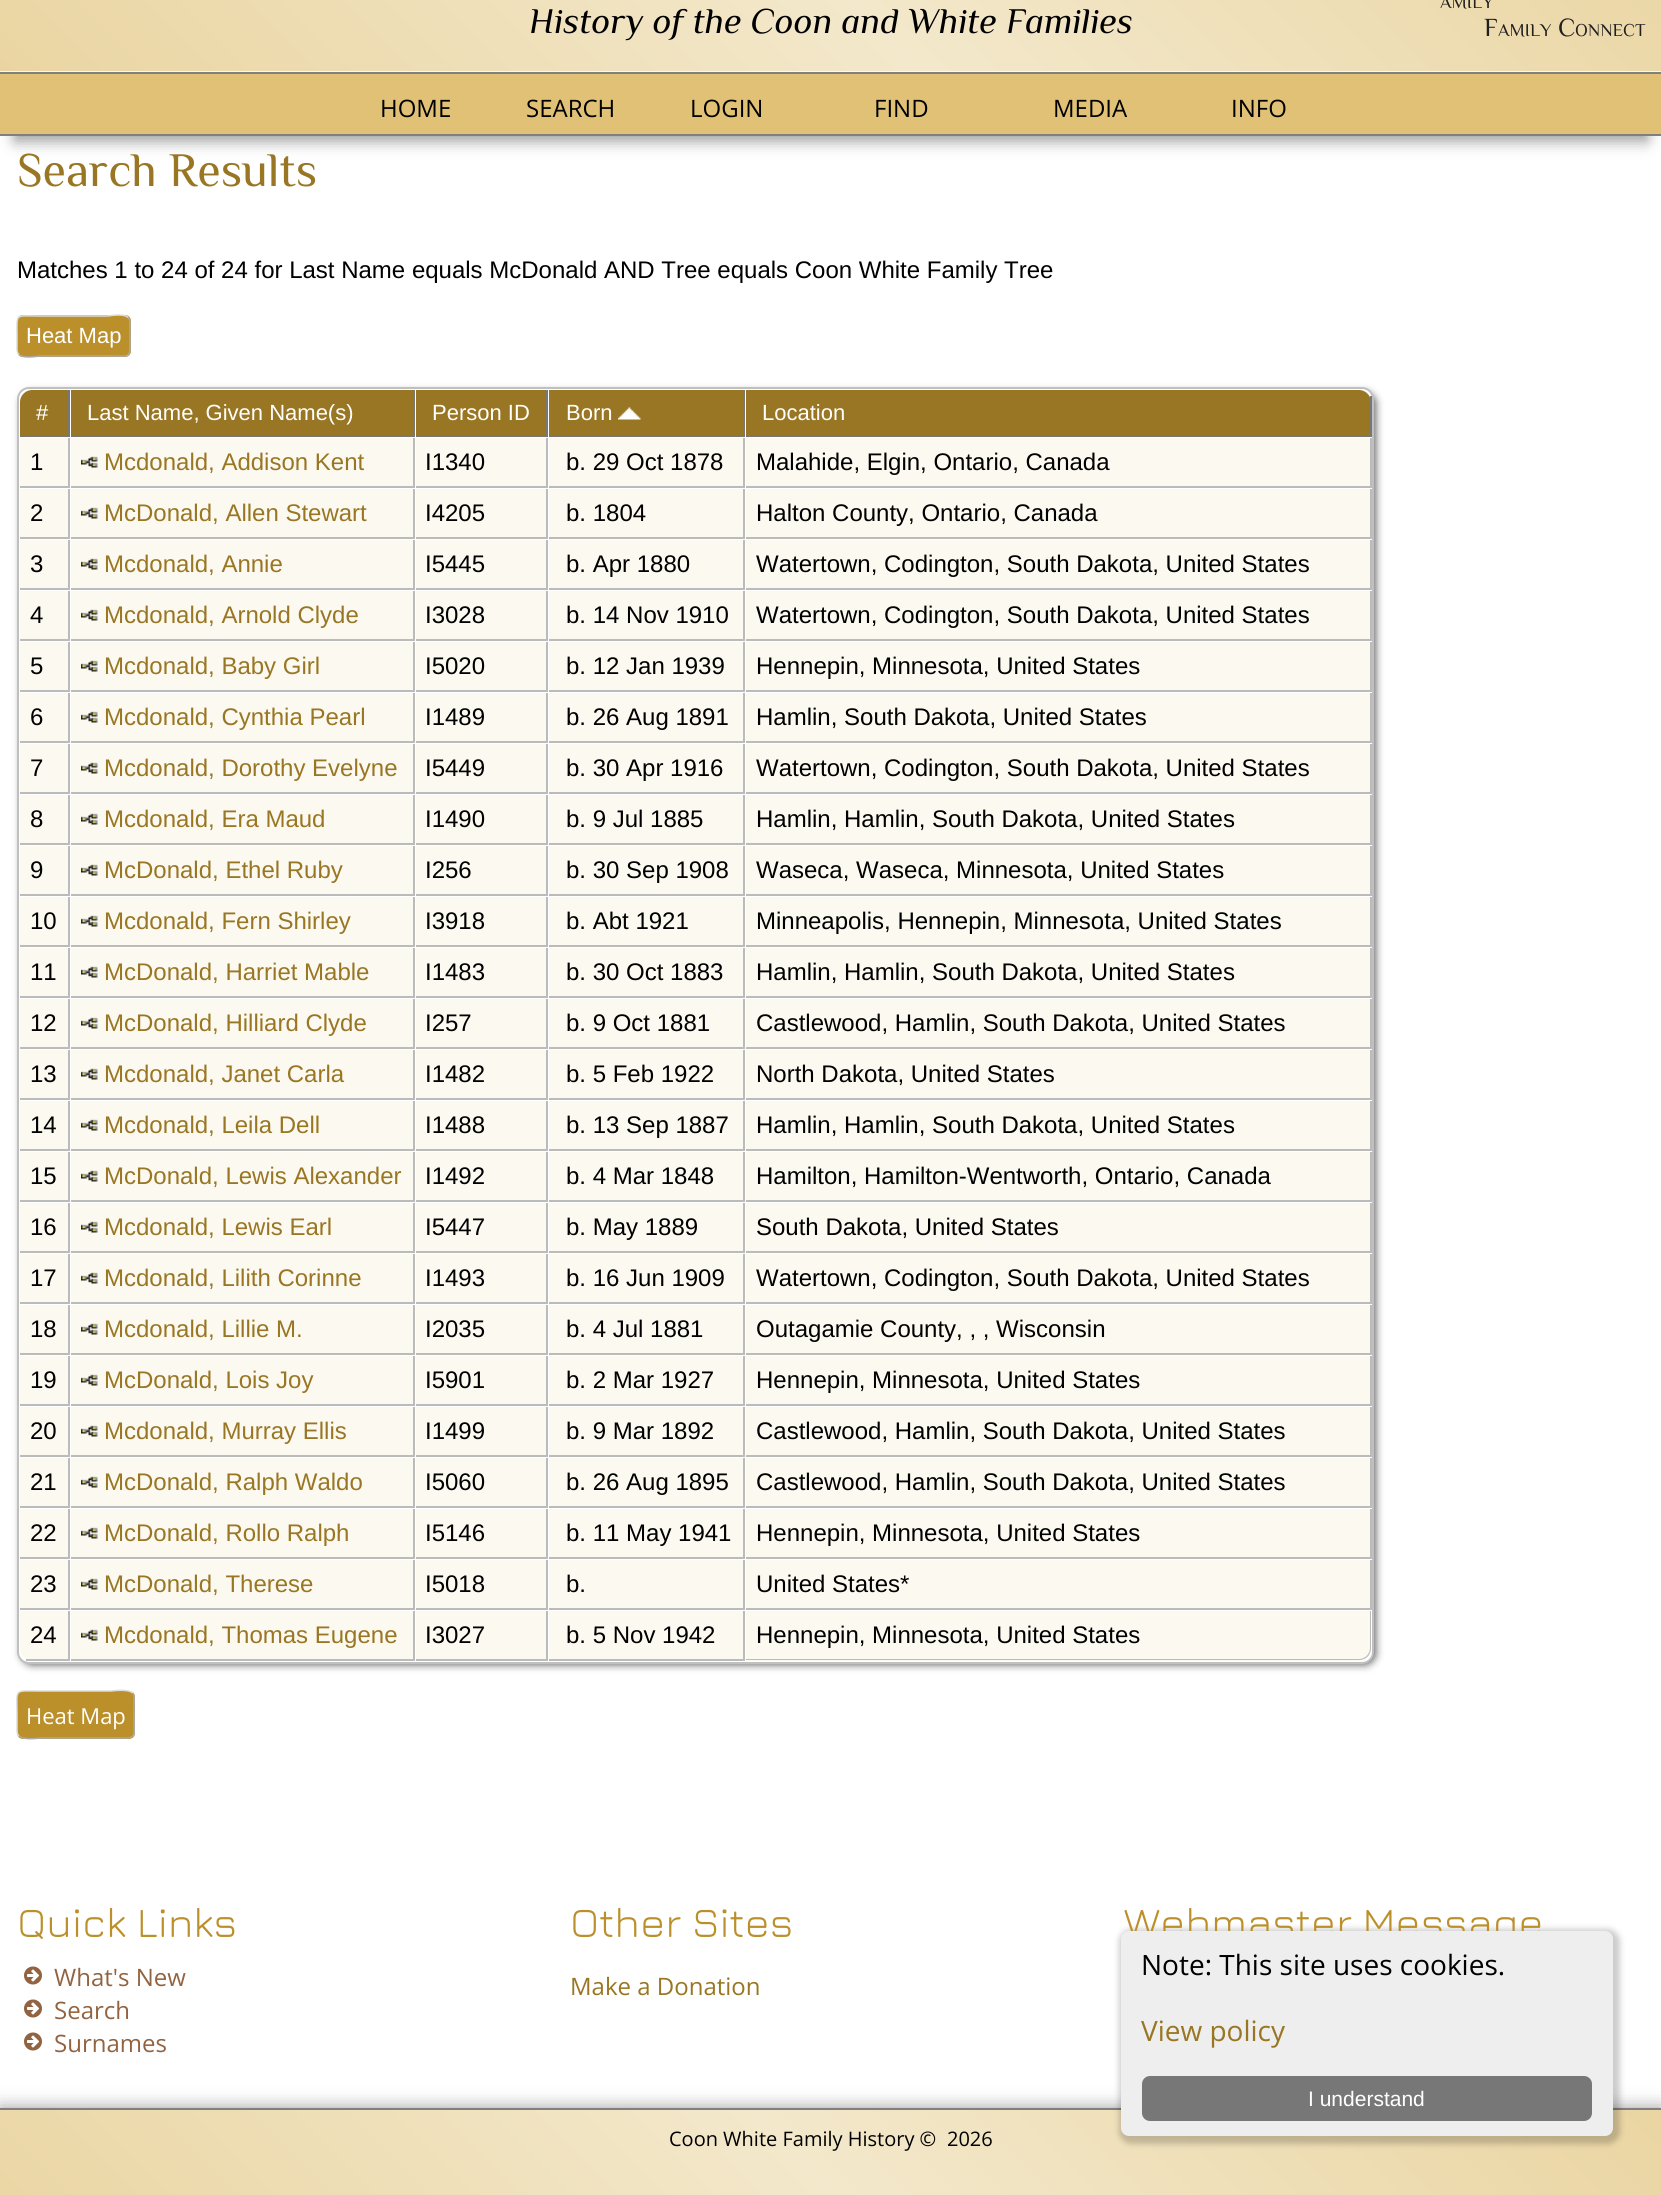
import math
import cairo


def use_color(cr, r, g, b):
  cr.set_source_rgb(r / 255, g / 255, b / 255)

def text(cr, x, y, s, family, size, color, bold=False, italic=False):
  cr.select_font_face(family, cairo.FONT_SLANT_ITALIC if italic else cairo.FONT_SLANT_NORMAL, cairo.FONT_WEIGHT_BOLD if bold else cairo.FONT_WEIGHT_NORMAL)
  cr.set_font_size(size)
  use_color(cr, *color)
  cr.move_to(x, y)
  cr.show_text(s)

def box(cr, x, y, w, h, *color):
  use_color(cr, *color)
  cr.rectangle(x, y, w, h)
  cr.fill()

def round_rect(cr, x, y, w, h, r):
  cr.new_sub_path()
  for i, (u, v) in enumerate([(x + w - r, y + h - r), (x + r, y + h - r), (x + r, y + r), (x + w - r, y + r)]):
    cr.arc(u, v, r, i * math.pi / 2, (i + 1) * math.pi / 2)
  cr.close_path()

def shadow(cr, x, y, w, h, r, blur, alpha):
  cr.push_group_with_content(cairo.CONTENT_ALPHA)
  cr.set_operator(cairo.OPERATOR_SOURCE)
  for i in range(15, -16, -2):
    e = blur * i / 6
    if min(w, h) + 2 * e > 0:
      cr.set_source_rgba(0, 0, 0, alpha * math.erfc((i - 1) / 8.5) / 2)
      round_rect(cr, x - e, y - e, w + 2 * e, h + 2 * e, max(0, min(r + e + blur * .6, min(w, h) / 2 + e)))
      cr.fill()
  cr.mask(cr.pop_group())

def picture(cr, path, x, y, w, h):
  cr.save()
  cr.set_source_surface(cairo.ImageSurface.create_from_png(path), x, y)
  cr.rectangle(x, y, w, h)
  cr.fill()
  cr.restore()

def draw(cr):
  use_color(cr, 255, 255, 255)
  cr.paint()
  gradient = cairo.LinearGradient(370, 440, 1292, -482)
  gradient.add_color_stop_rgba(0, 0.918, 0.835, 0.635, 1)
  gradient.add_color_stop_rgba(0.5, 0.953, 0.91, 0.796, 1)
  gradient.add_color_stop_rgba(1, 0.918, 0.835, 0.635, 1)
  cr.set_source(gradient)
  cr.rectangle(0, 0, 1661, 71)
  cr.fill()
  box(cr, 0, 71, 1661, 1, 252, 249, 240)
  use_color(cr, 0, 0, 0)
  shadow(cr, 15, 108, 1632, 33, 0, 7.5, 0.4)
  box(cr, 0, 74, 1661, 60, 224, 193, 118)
  box(cr, 0, 72, 1661, 2, 128, 128, 128)
  box(cr, 0, 134, 1661, 2, 128, 128, 128)
  use_color(cr, 187, 144, 43)
  round_rect(cr, 17, 315, 114, 42, 6)
  cr.fill()
  cr.new_path()
  cr.move_to(128, 317.5)
  cr.curve_to(130.5, 319.5, 130, 323, 130, 326)
  cr.line_to(130, 336)
  cr.curve_to(130, 359.5, 132.5, 356, 107.5, 356)
  cr.line_to(39.5, 356)
  cr.curve_to(39, 356, 23, 359, 19, 354.5)
  use_color(cr, 170, 170, 170)
  cr.set_line_width(1.5)
  cr.stroke()
  cr.new_path()
  cr.move_to(19, 354.5)
  cr.curve_to(16.5, 352.5, 17, 349, 17, 346)
  cr.line_to(17, 336)
  cr.curve_to(17, 312.5, 14.5, 316, 39.5, 316)
  cr.line_to(107.5, 316)
  cr.curve_to(108, 316, 124, 313, 128, 317.5)
  use_color(cr, 221, 221, 221)
  cr.stroke()
  use_color(cr, 102, 102, 102)
  shadow(cr, 21, 392, 1355, 1273, 11, 4, 1)
  use_color(cr, 255, 255, 255)
  round_rect(cr, 18, 388, 1355, 1275, 11)
  cr.fill_preserve()
  use_color(cr, 192, 192, 192)
  cr.set_line_width(2)
  cr.stroke()
  use_color(cr, 153, 118, 35)
  cr.new_path()
  cr.move_to(32, 390)
  cr.line_to(69, 390)
  cr.line_to(69, 437)
  cr.line_to(20, 437)
  cr.line_to(20, 402)
  cr.curve_to(20, 395.5, 25.5, 390, 32, 390)
  cr.close_path()
  cr.fill()
  box(cr, 68, 390, 2, 47, 119, 119, 119)
  box(cr, 20, 435, 49, 2, 119, 119, 119)
  box(cr, 71, 390, 342, 45, 153, 118, 35)
  box(cr, 413, 390, 2, 47, 119, 119, 119)
  box(cr, 71, 435, 343, 2, 119, 119, 119)
  box(cr, 416, 390, 130, 45, 153, 118, 35)
  box(cr, 546, 390, 2, 47, 119, 119, 119)
  box(cr, 416, 435, 132, 2, 119, 119, 119)
  box(cr, 549, 390, 194, 45, 153, 118, 35)
  box(cr, 743, 390, 2, 47, 119, 119, 119)
  box(cr, 549, 435, 195, 2, 119, 119, 119)
  picture(cr, "img_01.png", 618, 407, 23, 13)
  use_color(cr, 153, 118, 35)
  cr.new_path()
  cr.move_to(746, 390)
  cr.line_to(1359, 390)
  cr.curve_to(1365.5, 390, 1371, 395.5, 1371, 402)
  cr.line_to(1371, 437)
  cr.line_to(746, 437)
  cr.close_path()
  cr.fill()
  box(cr, 1370, 396, 2, 41, 119, 119, 119)
  box(cr, 746, 435, 625, 2, 119, 119, 119)
  box(cr, 20, 438, 48, 48, 252, 249, 240)
  box(cr, 68, 438, 2, 50, 187, 187, 187)
  box(cr, 20, 486, 49, 2, 187, 187, 187)
  box(cr, 71, 438, 342, 48, 252, 249, 240)
  box(cr, 413, 438, 2, 50, 187, 187, 187)
  box(cr, 71, 486, 343, 2, 187, 187, 187)
  picture(cr, "img_02.png", 81, 456, 17, 12)
  box(cr, 416, 438, 130, 48, 252, 249, 240)
  box(cr, 546, 438, 2, 50, 187, 187, 187)
  box(cr, 416, 486, 132, 2, 187, 187, 187)
  box(cr, 549, 438, 194, 48, 252, 249, 240)
  box(cr, 743, 438, 2, 50, 187, 187, 187)
  box(cr, 549, 486, 195, 2, 187, 187, 187)
  box(cr, 746, 438, 624, 48, 252, 249, 240)
  box(cr, 1370, 438, 2, 50, 187, 187, 187)
  box(cr, 746, 486, 625, 2, 187, 187, 187)
  box(cr, 20, 489, 48, 48, 252, 249, 240)
  box(cr, 68, 489, 2, 50, 187, 187, 187)
  box(cr, 20, 537, 49, 2, 187, 187, 187)
  box(cr, 71, 489, 342, 48, 252, 249, 240)
  box(cr, 413, 489, 2, 50, 187, 187, 187)
  box(cr, 71, 537, 343, 2, 187, 187, 187)
  picture(cr, "img_02.png", 81, 507, 17, 12)
  box(cr, 416, 489, 130, 48, 252, 249, 240)
  box(cr, 546, 489, 2, 50, 187, 187, 187)
  box(cr, 416, 537, 132, 2, 187, 187, 187)
  box(cr, 549, 489, 194, 48, 252, 249, 240)
  box(cr, 743, 489, 2, 50, 187, 187, 187)
  box(cr, 549, 537, 195, 2, 187, 187, 187)
  box(cr, 746, 489, 624, 48, 252, 249, 240)
  box(cr, 1370, 489, 2, 50, 187, 187, 187)
  box(cr, 746, 537, 625, 2, 187, 187, 187)
  box(cr, 20, 540, 48, 48, 252, 249, 240)
  box(cr, 68, 540, 2, 50, 187, 187, 187)
  box(cr, 20, 588, 49, 2, 187, 187, 187)
  box(cr, 71, 540, 342, 48, 252, 249, 240)
  box(cr, 413, 540, 2, 50, 187, 187, 187)
  box(cr, 71, 588, 343, 2, 187, 187, 187)
  picture(cr, "img_02.png", 81, 558, 17, 12)
  box(cr, 416, 540, 130, 48, 252, 249, 240)
  box(cr, 546, 540, 2, 50, 187, 187, 187)
  box(cr, 416, 588, 132, 2, 187, 187, 187)
  box(cr, 549, 540, 194, 48, 252, 249, 240)
  box(cr, 743, 540, 2, 50, 187, 187, 187)
  box(cr, 549, 588, 195, 2, 187, 187, 187)
  box(cr, 746, 540, 624, 48, 252, 249, 240)
  box(cr, 1370, 540, 2, 50, 187, 187, 187)
  box(cr, 746, 588, 625, 2, 187, 187, 187)
  box(cr, 20, 591, 48, 48, 252, 249, 240)
  box(cr, 68, 591, 2, 50, 187, 187, 187)
  box(cr, 20, 639, 49, 2, 187, 187, 187)
  box(cr, 71, 591, 342, 48, 252, 249, 240)
  box(cr, 413, 591, 2, 50, 187, 187, 187)
  box(cr, 71, 639, 343, 2, 187, 187, 187)
  picture(cr, "img_02.png", 81, 609, 17, 12)
  box(cr, 416, 591, 130, 48, 252, 249, 240)
  box(cr, 546, 591, 2, 50, 187, 187, 187)
  box(cr, 416, 639, 132, 2, 187, 187, 187)
  box(cr, 549, 591, 194, 48, 252, 249, 240)
  box(cr, 743, 591, 2, 50, 187, 187, 187)
  box(cr, 549, 639, 195, 2, 187, 187, 187)
  box(cr, 746, 591, 624, 48, 252, 249, 240)
  box(cr, 1370, 591, 2, 50, 187, 187, 187)
  box(cr, 746, 639, 625, 2, 187, 187, 187)
  box(cr, 20, 642, 48, 48, 252, 249, 240)
  box(cr, 68, 642, 2, 50, 187, 187, 187)
  box(cr, 20, 690, 49, 2, 187, 187, 187)
  box(cr, 71, 642, 342, 48, 252, 249, 240)
  box(cr, 413, 642, 2, 50, 187, 187, 187)
  box(cr, 71, 690, 343, 2, 187, 187, 187)
  picture(cr, "img_02.png", 81, 660, 17, 12)
  box(cr, 416, 642, 130, 48, 252, 249, 240)
  box(cr, 546, 642, 2, 50, 187, 187, 187)
  box(cr, 416, 690, 132, 2, 187, 187, 187)
  box(cr, 549, 642, 194, 48, 252, 249, 240)
  box(cr, 743, 642, 2, 50, 187, 187, 187)
  box(cr, 549, 690, 195, 2, 187, 187, 187)
  box(cr, 746, 642, 624, 48, 252, 249, 240)
  box(cr, 1370, 642, 2, 50, 187, 187, 187)
  box(cr, 746, 690, 625, 2, 187, 187, 187)
  box(cr, 20, 693, 48, 48, 252, 249, 240)
  box(cr, 68, 693, 2, 50, 187, 187, 187)
  box(cr, 20, 741, 49, 2, 187, 187, 187)
  box(cr, 71, 693, 342, 48, 252, 249, 240)
  box(cr, 413, 693, 2, 50, 187, 187, 187)
  box(cr, 71, 741, 343, 2, 187, 187, 187)
  picture(cr, "img_02.png", 81, 711, 17, 12)
  box(cr, 416, 693, 130, 48, 252, 249, 240)
  box(cr, 546, 693, 2, 50, 187, 187, 187)
  box(cr, 416, 741, 132, 2, 187, 187, 187)
  box(cr, 549, 693, 194, 48, 252, 249, 240)
  box(cr, 743, 693, 2, 50, 187, 187, 187)
  box(cr, 549, 741, 195, 2, 187, 187, 187)
  box(cr, 746, 693, 624, 48, 252, 249, 240)
  box(cr, 1370, 693, 2, 50, 187, 187, 187)
  box(cr, 746, 741, 625, 2, 187, 187, 187)
  box(cr, 20, 744, 48, 48, 252, 249, 240)
  box(cr, 68, 744, 2, 50, 187, 187, 187)
  box(cr, 20, 792, 49, 2, 187, 187, 187)
  box(cr, 71, 744, 342, 48, 252, 249, 240)
  box(cr, 413, 744, 2, 50, 187, 187, 187)
  box(cr, 71, 792, 343, 2, 187, 187, 187)
  picture(cr, "img_02.png", 81, 762, 17, 12)
  box(cr, 416, 744, 130, 48, 252, 249, 240)
  box(cr, 546, 744, 2, 50, 187, 187, 187)
  box(cr, 416, 792, 132, 2, 187, 187, 187)
  box(cr, 549, 744, 194, 48, 252, 249, 240)
  box(cr, 743, 744, 2, 50, 187, 187, 187)
  box(cr, 549, 792, 195, 2, 187, 187, 187)
  box(cr, 746, 744, 624, 48, 252, 249, 240)
  box(cr, 1370, 744, 2, 50, 187, 187, 187)
  box(cr, 746, 792, 625, 2, 187, 187, 187)
  box(cr, 20, 795, 48, 48, 252, 249, 240)
  box(cr, 68, 795, 2, 50, 187, 187, 187)
  box(cr, 20, 843, 49, 2, 187, 187, 187)
  box(cr, 71, 795, 342, 48, 252, 249, 240)
  box(cr, 413, 795, 2, 50, 187, 187, 187)
  box(cr, 71, 843, 343, 2, 187, 187, 187)
  picture(cr, "img_02.png", 81, 813, 17, 12)
  box(cr, 416, 795, 130, 48, 252, 249, 240)
  box(cr, 546, 795, 2, 50, 187, 187, 187)
  box(cr, 416, 843, 132, 2, 187, 187, 187)
  box(cr, 549, 795, 194, 48, 252, 249, 240)
  box(cr, 743, 795, 2, 50, 187, 187, 187)
  box(cr, 549, 843, 195, 2, 187, 187, 187)
  box(cr, 746, 795, 624, 48, 252, 249, 240)
  box(cr, 1370, 795, 2, 50, 187, 187, 187)
  box(cr, 746, 843, 625, 2, 187, 187, 187)
  box(cr, 20, 846, 48, 48, 252, 249, 240)
  box(cr, 68, 846, 2, 50, 187, 187, 187)
  box(cr, 20, 894, 49, 2, 187, 187, 187)
  box(cr, 71, 846, 342, 48, 252, 249, 240)
  box(cr, 413, 846, 2, 50, 187, 187, 187)
  box(cr, 71, 894, 343, 2, 187, 187, 187)
  picture(cr, "img_02.png", 81, 864, 17, 12)
  box(cr, 416, 846, 130, 48, 252, 249, 240)
  box(cr, 546, 846, 2, 50, 187, 187, 187)
  box(cr, 416, 894, 132, 2, 187, 187, 187)
  box(cr, 549, 846, 194, 48, 252, 249, 240)
  box(cr, 743, 846, 2, 50, 187, 187, 187)
  box(cr, 549, 894, 195, 2, 187, 187, 187)
  box(cr, 746, 846, 624, 48, 252, 249, 240)
  box(cr, 1370, 846, 2, 50, 187, 187, 187)
  box(cr, 746, 894, 625, 2, 187, 187, 187)
  box(cr, 20, 897, 48, 48, 252, 249, 240)
  box(cr, 68, 897, 2, 50, 187, 187, 187)
  box(cr, 20, 945, 49, 2, 187, 187, 187)
  box(cr, 71, 897, 342, 48, 252, 249, 240)
  box(cr, 413, 897, 2, 50, 187, 187, 187)
  box(cr, 71, 945, 343, 2, 187, 187, 187)
  picture(cr, "img_02.png", 81, 915, 17, 12)
  box(cr, 416, 897, 130, 48, 252, 249, 240)
  box(cr, 546, 897, 2, 50, 187, 187, 187)
  box(cr, 416, 945, 132, 2, 187, 187, 187)
  box(cr, 549, 897, 194, 48, 252, 249, 240)
  box(cr, 743, 897, 2, 50, 187, 187, 187)
  box(cr, 549, 945, 195, 2, 187, 187, 187)
  box(cr, 746, 897, 624, 48, 252, 249, 240)
  box(cr, 1370, 897, 2, 50, 187, 187, 187)
  box(cr, 746, 945, 625, 2, 187, 187, 187)
  box(cr, 20, 948, 48, 48, 252, 249, 240)
  box(cr, 68, 948, 2, 50, 187, 187, 187)
  box(cr, 20, 996, 49, 2, 187, 187, 187)
  box(cr, 71, 948, 342, 48, 252, 249, 240)
  box(cr, 413, 948, 2, 50, 187, 187, 187)
  box(cr, 71, 996, 343, 2, 187, 187, 187)
  picture(cr, "img_02.png", 81, 966, 17, 12)
  box(cr, 416, 948, 130, 48, 252, 249, 240)
  box(cr, 546, 948, 2, 50, 187, 187, 187)
  box(cr, 416, 996, 132, 2, 187, 187, 187)
  box(cr, 549, 948, 194, 48, 252, 249, 240)
  box(cr, 743, 948, 2, 50, 187, 187, 187)
  box(cr, 549, 996, 195, 2, 187, 187, 187)
  box(cr, 746, 948, 624, 48, 252, 249, 240)
  box(cr, 1370, 948, 2, 50, 187, 187, 187)
  box(cr, 746, 996, 625, 2, 187, 187, 187)
  box(cr, 20, 999, 48, 48, 252, 249, 240)
  box(cr, 68, 999, 2, 50, 187, 187, 187)
  box(cr, 20, 1047, 49, 2, 187, 187, 187)
  box(cr, 71, 999, 342, 48, 252, 249, 240)
  box(cr, 413, 999, 2, 50, 187, 187, 187)
  box(cr, 71, 1047, 343, 2, 187, 187, 187)
  picture(cr, "img_02.png", 81, 1017, 17, 12)
  box(cr, 416, 999, 130, 48, 252, 249, 240)
  box(cr, 546, 999, 2, 50, 187, 187, 187)
  box(cr, 416, 1047, 132, 2, 187, 187, 187)
  box(cr, 549, 999, 194, 48, 252, 249, 240)
  box(cr, 743, 999, 2, 50, 187, 187, 187)
  box(cr, 549, 1047, 195, 2, 187, 187, 187)
  box(cr, 746, 999, 624, 48, 252, 249, 240)
  box(cr, 1370, 999, 2, 50, 187, 187, 187)
  box(cr, 746, 1047, 625, 2, 187, 187, 187)
  box(cr, 20, 1050, 48, 48, 252, 249, 240)
  box(cr, 68, 1050, 2, 50, 187, 187, 187)
  box(cr, 20, 1098, 49, 2, 187, 187, 187)
  box(cr, 71, 1050, 342, 48, 252, 249, 240)
  box(cr, 413, 1050, 2, 50, 187, 187, 187)
  box(cr, 71, 1098, 343, 2, 187, 187, 187)
  picture(cr, "img_02.png", 81, 1068, 17, 12)
  box(cr, 416, 1050, 130, 48, 252, 249, 240)
  box(cr, 546, 1050, 2, 50, 187, 187, 187)
  box(cr, 416, 1098, 132, 2, 187, 187, 187)
  box(cr, 549, 1050, 194, 48, 252, 249, 240)
  box(cr, 743, 1050, 2, 50, 187, 187, 187)
  box(cr, 549, 1098, 195, 2, 187, 187, 187)
  box(cr, 746, 1050, 624, 48, 252, 249, 240)
  box(cr, 1370, 1050, 2, 50, 187, 187, 187)
  box(cr, 746, 1098, 625, 2, 187, 187, 187)
  box(cr, 20, 1101, 48, 48, 252, 249, 240)
  box(cr, 68, 1101, 2, 50, 187, 187, 187)
  box(cr, 20, 1149, 49, 2, 187, 187, 187)
  box(cr, 71, 1101, 342, 48, 252, 249, 240)
  box(cr, 413, 1101, 2, 50, 187, 187, 187)
  box(cr, 71, 1149, 343, 2, 187, 187, 187)
  picture(cr, "img_02.png", 81, 1119, 17, 12)
  box(cr, 416, 1101, 130, 48, 252, 249, 240)
  box(cr, 546, 1101, 2, 50, 187, 187, 187)
  box(cr, 416, 1149, 132, 2, 187, 187, 187)
  box(cr, 549, 1101, 194, 48, 252, 249, 240)
  box(cr, 743, 1101, 2, 50, 187, 187, 187)
  box(cr, 549, 1149, 195, 2, 187, 187, 187)
  box(cr, 746, 1101, 624, 48, 252, 249, 240)
  box(cr, 1370, 1101, 2, 50, 187, 187, 187)
  box(cr, 746, 1149, 625, 2, 187, 187, 187)
  box(cr, 20, 1152, 48, 48, 252, 249, 240)
  box(cr, 68, 1152, 2, 50, 187, 187, 187)
  box(cr, 20, 1200, 49, 2, 187, 187, 187)
  box(cr, 71, 1152, 342, 48, 252, 249, 240)
  box(cr, 413, 1152, 2, 50, 187, 187, 187)
  box(cr, 71, 1200, 343, 2, 187, 187, 187)
  picture(cr, "img_02.png", 81, 1170, 17, 12)
  box(cr, 416, 1152, 130, 48, 252, 249, 240)
  box(cr, 546, 1152, 2, 50, 187, 187, 187)
  box(cr, 416, 1200, 132, 2, 187, 187, 187)
  box(cr, 549, 1152, 194, 48, 252, 249, 240)
  box(cr, 743, 1152, 2, 50, 187, 187, 187)
  box(cr, 549, 1200, 195, 2, 187, 187, 187)
  box(cr, 746, 1152, 624, 48, 252, 249, 240)
  box(cr, 1370, 1152, 2, 50, 187, 187, 187)
  box(cr, 746, 1200, 625, 2, 187, 187, 187)
  box(cr, 20, 1203, 48, 48, 252, 249, 240)
  box(cr, 68, 1203, 2, 50, 187, 187, 187)
  box(cr, 20, 1251, 49, 2, 187, 187, 187)
  box(cr, 71, 1203, 342, 48, 252, 249, 240)
  box(cr, 413, 1203, 2, 50, 187, 187, 187)
  box(cr, 71, 1251, 343, 2, 187, 187, 187)
  picture(cr, "img_02.png", 81, 1221, 17, 12)
  box(cr, 416, 1203, 130, 48, 252, 249, 240)
  box(cr, 546, 1203, 2, 50, 187, 187, 187)
  box(cr, 416, 1251, 132, 2, 187, 187, 187)
  box(cr, 549, 1203, 194, 48, 252, 249, 240)
  box(cr, 743, 1203, 2, 50, 187, 187, 187)
  box(cr, 549, 1251, 195, 2, 187, 187, 187)
  box(cr, 746, 1203, 624, 48, 252, 249, 240)
  box(cr, 1370, 1203, 2, 50, 187, 187, 187)
  box(cr, 746, 1251, 625, 2, 187, 187, 187)
  box(cr, 20, 1254, 48, 48, 252, 249, 240)
  box(cr, 68, 1254, 2, 50, 187, 187, 187)
  box(cr, 20, 1302, 49, 2, 187, 187, 187)
  box(cr, 71, 1254, 342, 48, 252, 249, 240)
  box(cr, 413, 1254, 2, 50, 187, 187, 187)
  box(cr, 71, 1302, 343, 2, 187, 187, 187)
  picture(cr, "img_02.png", 81, 1272, 17, 12)
  box(cr, 416, 1254, 130, 48, 252, 249, 240)
  box(cr, 546, 1254, 2, 50, 187, 187, 187)
  box(cr, 416, 1302, 132, 2, 187, 187, 187)
  box(cr, 549, 1254, 194, 48, 252, 249, 240)
  box(cr, 743, 1254, 2, 50, 187, 187, 187)
  box(cr, 549, 1302, 195, 2, 187, 187, 187)
  box(cr, 746, 1254, 624, 48, 252, 249, 240)
  box(cr, 1370, 1254, 2, 50, 187, 187, 187)
  box(cr, 746, 1302, 625, 2, 187, 187, 187)
  box(cr, 20, 1305, 48, 48, 252, 249, 240)
  box(cr, 68, 1305, 2, 50, 187, 187, 187)
  box(cr, 20, 1353, 49, 2, 187, 187, 187)
  box(cr, 71, 1305, 342, 48, 252, 249, 240)
  box(cr, 413, 1305, 2, 50, 187, 187, 187)
  box(cr, 71, 1353, 343, 2, 187, 187, 187)
  picture(cr, "img_02.png", 81, 1323, 17, 12)
  box(cr, 416, 1305, 130, 48, 252, 249, 240)
  box(cr, 546, 1305, 2, 50, 187, 187, 187)
  box(cr, 416, 1353, 132, 2, 187, 187, 187)
  box(cr, 549, 1305, 194, 48, 252, 249, 240)
  box(cr, 743, 1305, 2, 50, 187, 187, 187)
  box(cr, 549, 1353, 195, 2, 187, 187, 187)
  box(cr, 746, 1305, 624, 48, 252, 249, 240)
  box(cr, 1370, 1305, 2, 50, 187, 187, 187)
  box(cr, 746, 1353, 625, 2, 187, 187, 187)
  box(cr, 20, 1356, 48, 48, 252, 249, 240)
  box(cr, 68, 1356, 2, 50, 187, 187, 187)
  box(cr, 20, 1404, 49, 2, 187, 187, 187)
  box(cr, 71, 1356, 342, 48, 252, 249, 240)
  box(cr, 413, 1356, 2, 50, 187, 187, 187)
  box(cr, 71, 1404, 343, 2, 187, 187, 187)
  picture(cr, "img_02.png", 81, 1374, 17, 12)
  box(cr, 416, 1356, 130, 48, 252, 249, 240)
  box(cr, 546, 1356, 2, 50, 187, 187, 187)
  box(cr, 416, 1404, 132, 2, 187, 187, 187)
  box(cr, 549, 1356, 194, 48, 252, 249, 240)
  box(cr, 743, 1356, 2, 50, 187, 187, 187)
  box(cr, 549, 1404, 195, 2, 187, 187, 187)
  box(cr, 746, 1356, 624, 48, 252, 249, 240)
  box(cr, 1370, 1356, 2, 50, 187, 187, 187)
  box(cr, 746, 1404, 625, 2, 187, 187, 187)
  box(cr, 20, 1407, 48, 48, 252, 249, 240)
  box(cr, 68, 1407, 2, 50, 187, 187, 187)
  box(cr, 20, 1455, 49, 2, 187, 187, 187)
  box(cr, 71, 1407, 342, 48, 252, 249, 240)
  box(cr, 413, 1407, 2, 50, 187, 187, 187)
  box(cr, 71, 1455, 343, 2, 187, 187, 187)
  picture(cr, "img_02.png", 81, 1425, 17, 12)
  box(cr, 416, 1407, 130, 48, 252, 249, 240)
  box(cr, 546, 1407, 2, 50, 187, 187, 187)
  box(cr, 416, 1455, 132, 2, 187, 187, 187)
  box(cr, 549, 1407, 194, 48, 252, 249, 240)
  box(cr, 743, 1407, 2, 50, 187, 187, 187)
  box(cr, 549, 1455, 195, 2, 187, 187, 187)
  box(cr, 746, 1407, 624, 48, 252, 249, 240)
  box(cr, 1370, 1407, 2, 50, 187, 187, 187)
  box(cr, 746, 1455, 625, 2, 187, 187, 187)
  box(cr, 20, 1458, 48, 48, 252, 249, 240)
  box(cr, 68, 1458, 2, 50, 187, 187, 187)
  box(cr, 20, 1506, 49, 2, 187, 187, 187)
  box(cr, 71, 1458, 342, 48, 252, 249, 240)
  box(cr, 413, 1458, 2, 50, 187, 187, 187)
  box(cr, 71, 1506, 343, 2, 187, 187, 187)
  picture(cr, "img_02.png", 81, 1476, 17, 12)
  box(cr, 416, 1458, 130, 48, 252, 249, 240)
  box(cr, 546, 1458, 2, 50, 187, 187, 187)
  box(cr, 416, 1506, 132, 2, 187, 187, 187)
  box(cr, 549, 1458, 194, 48, 252, 249, 240)
  box(cr, 743, 1458, 2, 50, 187, 187, 187)
  box(cr, 549, 1506, 195, 2, 187, 187, 187)
  box(cr, 746, 1458, 624, 48, 252, 249, 240)
  box(cr, 1370, 1458, 2, 50, 187, 187, 187)
  box(cr, 746, 1506, 625, 2, 187, 187, 187)
  box(cr, 20, 1509, 48, 48, 252, 249, 240)
  box(cr, 68, 1509, 2, 50, 187, 187, 187)
  box(cr, 20, 1557, 49, 2, 187, 187, 187)
  box(cr, 71, 1509, 342, 48, 252, 249, 240)
  box(cr, 413, 1509, 2, 50, 187, 187, 187)
  box(cr, 71, 1557, 343, 2, 187, 187, 187)
  picture(cr, "img_02.png", 81, 1527, 17, 12)
  box(cr, 416, 1509, 130, 48, 252, 249, 240)
  box(cr, 546, 1509, 2, 50, 187, 187, 187)
  box(cr, 416, 1557, 132, 2, 187, 187, 187)
  box(cr, 549, 1509, 194, 48, 252, 249, 240)
  box(cr, 743, 1509, 2, 50, 187, 187, 187)
  box(cr, 549, 1557, 195, 2, 187, 187, 187)
  box(cr, 746, 1509, 624, 48, 252, 249, 240)
  box(cr, 1370, 1509, 2, 50, 187, 187, 187)
  box(cr, 746, 1557, 625, 2, 187, 187, 187)
  box(cr, 20, 1560, 48, 48, 252, 249, 240)
  box(cr, 68, 1560, 2, 50, 187, 187, 187)
  box(cr, 20, 1608, 49, 2, 187, 187, 187)
  box(cr, 71, 1560, 342, 48, 252, 249, 240)
  box(cr, 413, 1560, 2, 50, 187, 187, 187)
  box(cr, 71, 1608, 343, 2, 187, 187, 187)
  picture(cr, "img_02.png", 81, 1578, 17, 12)
  box(cr, 416, 1560, 130, 48, 252, 249, 240)
  box(cr, 546, 1560, 2, 50, 187, 187, 187)
  box(cr, 416, 1608, 132, 2, 187, 187, 187)
  box(cr, 549, 1560, 194, 48, 252, 249, 240)
  box(cr, 743, 1560, 2, 50, 187, 187, 187)
  box(cr, 549, 1608, 195, 2, 187, 187, 187)
  box(cr, 746, 1560, 624, 48, 252, 249, 240)
  box(cr, 1370, 1560, 2, 50, 187, 187, 187)
  box(cr, 746, 1608, 625, 2, 187, 187, 187)
  use_color(cr, 252, 249, 240)
  cr.new_path()
  cr.move_to(20, 1611)
  cr.line_to(69, 1611)
  cr.line_to(69, 1661)
  cr.line_to(32, 1661)
  cr.curve_to(25.5, 1661, 20, 1655.5, 20, 1649)
  cr.close_path()
  cr.fill()
  box(cr, 68, 1611, 2, 50, 187, 187, 187)
  box(cr, 26, 1659, 43, 2, 187, 187, 187)
  box(cr, 71, 1611, 342, 48, 252, 249, 240)
  box(cr, 413, 1611, 2, 50, 187, 187, 187)
  box(cr, 71, 1659, 343, 2, 187, 187, 187)
  picture(cr, "img_02.png", 81, 1629, 17, 12)
  box(cr, 416, 1611, 130, 48, 252, 249, 240)
  box(cr, 546, 1611, 2, 50, 187, 187, 187)
  box(cr, 416, 1659, 132, 2, 187, 187, 187)
  box(cr, 549, 1611, 194, 48, 252, 249, 240)
  box(cr, 743, 1611, 2, 50, 187, 187, 187)
  box(cr, 549, 1659, 195, 2, 187, 187, 187)
  use_color(cr, 252, 249, 240)
  cr.new_path()
  cr.move_to(746, 1611)
  cr.line_to(1371, 1611)
  cr.line_to(1371, 1649)
  cr.curve_to(1371, 1655.5, 1365.5, 1661, 1359, 1661)
  cr.line_to(746, 1661)
  cr.close_path()
  cr.fill()
  use_color(cr, 187, 187, 187)
  cr.set_fill_rule(cairo.FILL_RULE_EVEN_ODD)
  cr.new_path()
  cr.move_to(746, 1611)
  cr.line_to(1371, 1611)
  cr.line_to(1371, 1648)
  cr.curve_to(1371, 1655, 1366, 1660, 1359, 1660)
  cr.line_to(746, 1660)
  cr.close_path()
  cr.move_to(746, 1611)
  cr.line_to(1370, 1611)
  cr.line_to(1370, 1648)
  cr.curve_to(1370, 1654, 1365, 1659, 1359, 1659)
  cr.line_to(746, 1659)
  cr.close_path()
  cr.fill()
  use_color(cr, 187, 144, 43)
  round_rect(cr, 17, 1691, 118, 48, 6)
  cr.fill()
  cr.new_path()
  cr.move_to(132.5, 1693)
  cr.curve_to(135, 1695, 134, 1699.5, 134, 1702.5)
  cr.line_to(134, 1714.5)
  cr.curve_to(134, 1741, 138.5, 1738, 111, 1738)
  cr.line_to(40, 1738)
  cr.curve_to(40, 1738, 23, 1740.5, 19, 1736)
  use_color(cr, 170, 170, 170)
  cr.set_line_width(1.5)
  cr.stroke()
  cr.new_path()
  cr.move_to(19, 1736)
  cr.curve_to(16.5, 1734, 17, 1729.5, 17, 1726.5)
  cr.line_to(17, 1714.5)
  cr.curve_to(17, 1688, 13, 1691, 40, 1691)
  cr.line_to(111, 1691)
  cr.curve_to(111.5, 1691, 128.5, 1688.5, 132.5, 1693)
  use_color(cr, 221, 221, 221)
  cr.stroke()
  picture(cr, "img_03.png", 24, 1966, 18, 19)
  picture(cr, "img_03.png", 24, 1999, 18, 19)
  picture(cr, "img_03.png", 24, 2032, 18, 19)
  use_color(cr, 0, 0, 0)
  shadow(cr, 0, 2108, 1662, 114, 0, 9, 0.4)
  gradient = cairo.LinearGradient(376, 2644, 1286, 1733)
  gradient.add_color_stop_rgba(0, 0.918, 0.835, 0.635, 1)
  gradient.add_color_stop_rgba(0.5, 0.953, 0.91, 0.796, 1)
  gradient.add_color_stop_rgba(1, 0.918, 0.835, 0.635, 1)
  cr.set_source(gradient)
  cr.rectangle(0, 2110, 1661, 85)
  cr.fill()
  box(cr, 0, 2108, 1661, 2, 128, 128, 128)
  use_color(cr, 0, 0, 0)
  shadow(cr, 1119, 1929, 501, 215, 12, 3, 0.2)
  text(cr, 529, 33, "History of the Coon and White Families", "Philosopher", 36, (0, 0, 0), italic=True)
  text(cr, 1440, 8, "AMILY", "Philosopher", 18, (32, 32, 32))
  text(cr, 1484, 36, "F", "Philosopher", 26, (32, 32, 32))
  text(cr, 1498, 36, "AMILY", "Philosopher", 18, (32, 32, 32))
  text(cr, 1558, 36, "C", "Philosopher", 26, (32, 32, 32))
  text(cr, 1575, 36, "ONNECT", "Philosopher", 18, (32, 32, 32))
  text(cr, 380, 117, "HOME", "Open Sans", 24, (0, 0, 0))
  text(cr, 526, 117, "SEARCH", "Open Sans", 24, (0, 0, 0))
  text(cr, 690, 117, "LOGIN", "Open Sans", 24, (0, 0, 0))
  text(cr, 874, 117, "FIND", "Open Sans", 24, (0, 0, 0))
  text(cr, 1053, 117, "MEDIA", "Open Sans", 24, (0, 0, 0))
  text(cr, 1231, 117, "INFO", "Open Sans", 24, (0, 0, 0))
  text(cr, 17, 186, "Search Results", "Philosopher", 48, (153, 118, 35))
  text(cr, 17, 278, "Matches 1 to 24 of 24 for Last Name equals McDonald AND Tree equals Coon White Family Tree", "Liberation Sans", 24, (0, 0, 0))
  text(cr, 26, 343, "Heat Map", "Liberation Sans", 22, (255, 255, 255))
  text(cr, 36, 420, "#", "Liberation Sans", 22, (255, 255, 255))
  text(cr, 87, 420, "Last Name, Given Name(s)", "Liberation Sans", 22, (255, 255, 255))
  text(cr, 432, 420, "Person ID", "Liberation Sans", 22, (255, 255, 255))
  text(cr, 566, 420, "Born", "Liberation Sans", 22, (255, 255, 255))
  text(cr, 762, 420, "Location", "Liberation Sans", 22, (255, 255, 255))
  text(cr, 30, 470, "1", "Liberation Sans", 24, (0, 0, 0))
  text(cr, 104, 470, "Mcdonald, Addison Kent", "Liberation Sans", 24, (153, 118, 35))
  text(cr, 425, 470, "I1340", "Liberation Sans", 24, (0, 0, 0))
  text(cr, 566, 470, "b. 29 Oct 1878", "Liberation Sans", 24, (0, 0, 0))
  text(cr, 756, 470, "Malahide, Elgin, Ontario, Canada", "Liberation Sans", 24, (0, 0, 0))
  text(cr, 30, 521, "2", "Liberation Sans", 24, (0, 0, 0))
  text(cr, 104, 521, "McDonald, Allen Stewart", "Liberation Sans", 24, (153, 118, 35))
  text(cr, 425, 521, "I4205", "Liberation Sans", 24, (0, 0, 0))
  text(cr, 566, 521, "b. 1804", "Liberation Sans", 24, (0, 0, 0))
  text(cr, 756, 521, "Halton County, Ontario, Canada", "Liberation Sans", 24, (0, 0, 0))
  text(cr, 30, 572, "3", "Liberation Sans", 24, (0, 0, 0))
  text(cr, 104, 572, "Mcdonald, Annie", "Liberation Sans", 24, (153, 118, 35))
  text(cr, 425, 572, "I5445", "Liberation Sans", 24, (0, 0, 0))
  text(cr, 566, 572, "b. Apr 1880", "Liberation Sans", 24, (0, 0, 0))
  text(cr, 756, 572, "Watertown, Codington, South Dakota, United States", "Liberation Sans", 24, (0, 0, 0))
  text(cr, 30, 623, "4", "Liberation Sans", 24, (0, 0, 0))
  text(cr, 104, 623, "Mcdonald, Arnold Clyde", "Liberation Sans", 24, (153, 118, 35))
  text(cr, 425, 623, "I3028", "Liberation Sans", 24, (0, 0, 0))
  text(cr, 566, 623, "b. 14 Nov 1910", "Liberation Sans", 24, (0, 0, 0))
  text(cr, 756, 623, "Watertown, Codington, South Dakota, United States", "Liberation Sans", 24, (0, 0, 0))
  text(cr, 30, 674, "5", "Liberation Sans", 24, (0, 0, 0))
  text(cr, 104, 674, "Mcdonald, Baby Girl", "Liberation Sans", 24, (153, 118, 35))
  text(cr, 425, 674, "I5020", "Liberation Sans", 24, (0, 0, 0))
  text(cr, 566, 674, "b. 12 Jan 1939", "Liberation Sans", 24, (0, 0, 0))
  text(cr, 756, 674, "Hennepin, Minnesota, United States", "Liberation Sans", 24, (0, 0, 0))
  text(cr, 30, 725, "6", "Liberation Sans", 24, (0, 0, 0))
  text(cr, 104, 725, "Mcdonald, Cynthia Pearl", "Liberation Sans", 24, (153, 118, 35))
  text(cr, 425, 725, "I1489", "Liberation Sans", 24, (0, 0, 0))
  text(cr, 566, 725, "b. 26 Aug 1891", "Liberation Sans", 24, (0, 0, 0))
  text(cr, 756, 725, "Hamlin, South Dakota, United States", "Liberation Sans", 24, (0, 0, 0))
  text(cr, 30, 776, "7", "Liberation Sans", 24, (0, 0, 0))
  text(cr, 104, 776, "Mcdonald, Dorothy Evelyne", "Liberation Sans", 24, (153, 118, 35))
  text(cr, 425, 776, "I5449", "Liberation Sans", 24, (0, 0, 0))
  text(cr, 566, 776, "b. 30 Apr 1916", "Liberation Sans", 24, (0, 0, 0))
  text(cr, 756, 776, "Watertown, Codington, South Dakota, United States", "Liberation Sans", 24, (0, 0, 0))
  text(cr, 30, 827, "8", "Liberation Sans", 24, (0, 0, 0))
  text(cr, 104, 827, "Mcdonald, Era Maud", "Liberation Sans", 24, (153, 118, 35))
  text(cr, 425, 827, "I1490", "Liberation Sans", 24, (0, 0, 0))
  text(cr, 566, 827, "b. 9 Jul 1885", "Liberation Sans", 24, (0, 0, 0))
  text(cr, 756, 827, "Hamlin, Hamlin, South Dakota, United States", "Liberation Sans", 24, (0, 0, 0))
  text(cr, 30, 878, "9", "Liberation Sans", 24, (0, 0, 0))
  text(cr, 104, 878, "McDonald, Ethel Ruby", "Liberation Sans", 24, (153, 118, 35))
  text(cr, 425, 878, "I256", "Liberation Sans", 24, (0, 0, 0))
  text(cr, 566, 878, "b. 30 Sep 1908", "Liberation Sans", 24, (0, 0, 0))
  text(cr, 756, 878, "Waseca, Waseca, Minnesota, United States", "Liberation Sans", 24, (0, 0, 0))
  text(cr, 30, 929, "10", "Liberation Sans", 24, (0, 0, 0))
  text(cr, 104, 929, "Mcdonald, Fern Shirley", "Liberation Sans", 24, (153, 118, 35))
  text(cr, 425, 929, "I3918", "Liberation Sans", 24, (0, 0, 0))
  text(cr, 566, 929, "b. Abt 1921", "Liberation Sans", 24, (0, 0, 0))
  text(cr, 756, 929, "Minneapolis, Hennepin, Minnesota, United States", "Liberation Sans", 24, (0, 0, 0))
  text(cr, 30, 980, "11", "Liberation Sans", 24, (0, 0, 0))
  text(cr, 104, 980, "McDonald, Harriet Mable", "Liberation Sans", 24, (153, 118, 35))
  text(cr, 425, 980, "I1483", "Liberation Sans", 24, (0, 0, 0))
  text(cr, 566, 980, "b. 30 Oct 1883", "Liberation Sans", 24, (0, 0, 0))
  text(cr, 756, 980, "Hamlin, Hamlin, South Dakota, United States", "Liberation Sans", 24, (0, 0, 0))
  text(cr, 30, 1031, "12", "Liberation Sans", 24, (0, 0, 0))
  text(cr, 104, 1031, "McDonald, Hilliard Clyde", "Liberation Sans", 24, (153, 118, 35))
  text(cr, 425, 1031, "I257", "Liberation Sans", 24, (0, 0, 0))
  text(cr, 566, 1031, "b. 9 Oct 1881", "Liberation Sans", 24, (0, 0, 0))
  text(cr, 756, 1031, "Castlewood, Hamlin, South Dakota, United States", "Liberation Sans", 24, (0, 0, 0))
  text(cr, 30, 1082, "13", "Liberation Sans", 24, (0, 0, 0))
  text(cr, 104, 1082, "Mcdonald, Janet Carla", "Liberation Sans", 24, (153, 118, 35))
  text(cr, 425, 1082, "I1482", "Liberation Sans", 24, (0, 0, 0))
  text(cr, 566, 1082, "b. 5 Feb 1922", "Liberation Sans", 24, (0, 0, 0))
  text(cr, 756, 1082, "North Dakota, United States", "Liberation Sans", 24, (0, 0, 0))
  text(cr, 30, 1133, "14", "Liberation Sans", 24, (0, 0, 0))
  text(cr, 104, 1133, "Mcdonald, Leila Dell", "Liberation Sans", 24, (153, 118, 35))
  text(cr, 425, 1133, "I1488", "Liberation Sans", 24, (0, 0, 0))
  text(cr, 566, 1133, "b. 13 Sep 1887", "Liberation Sans", 24, (0, 0, 0))
  text(cr, 756, 1133, "Hamlin, Hamlin, South Dakota, United States", "Liberation Sans", 24, (0, 0, 0))
  text(cr, 30, 1184, "15", "Liberation Sans", 24, (0, 0, 0))
  text(cr, 104, 1184, "McDonald, Lewis Alexander", "Liberation Sans", 24, (153, 118, 35))
  text(cr, 425, 1184, "I1492", "Liberation Sans", 24, (0, 0, 0))
  text(cr, 566, 1184, "b. 4 Mar 1848", "Liberation Sans", 24, (0, 0, 0))
  text(cr, 756, 1184, "Hamilton, Hamilton-Wentworth, Ontario, Canada", "Liberation Sans", 24, (0, 0, 0))
  text(cr, 30, 1235, "16", "Liberation Sans", 24, (0, 0, 0))
  text(cr, 104, 1235, "Mcdonald, Lewis Earl", "Liberation Sans", 24, (153, 118, 35))
  text(cr, 425, 1235, "I5447", "Liberation Sans", 24, (0, 0, 0))
  text(cr, 566, 1235, "b. May 1889", "Liberation Sans", 24, (0, 0, 0))
  text(cr, 756, 1235, "South Dakota, United States", "Liberation Sans", 24, (0, 0, 0))
  text(cr, 30, 1286, "17", "Liberation Sans", 24, (0, 0, 0))
  text(cr, 104, 1286, "Mcdonald, Lilith Corinne", "Liberation Sans", 24, (153, 118, 35))
  text(cr, 425, 1286, "I1493", "Liberation Sans", 24, (0, 0, 0))
  text(cr, 566, 1286, "b. 16 Jun 1909", "Liberation Sans", 24, (0, 0, 0))
  text(cr, 756, 1286, "Watertown, Codington, South Dakota, United States", "Liberation Sans", 24, (0, 0, 0))
  text(cr, 30, 1337, "18", "Liberation Sans", 24, (0, 0, 0))
  text(cr, 104, 1337, "Mcdonald, Lillie M.", "Liberation Sans", 24, (153, 118, 35))
  text(cr, 425, 1337, "I2035", "Liberation Sans", 24, (0, 0, 0))
  text(cr, 566, 1337, "b. 4 Jul 1881", "Liberation Sans", 24, (0, 0, 0))
  text(cr, 756, 1337, "Outagamie County, , , Wisconsin", "Liberation Sans", 24, (0, 0, 0))
  text(cr, 30, 1388, "19", "Liberation Sans", 24, (0, 0, 0))
  text(cr, 104, 1388, "McDonald, Lois Joy", "Liberation Sans", 24, (153, 118, 35))
  text(cr, 425, 1388, "I5901", "Liberation Sans", 24, (0, 0, 0))
  text(cr, 566, 1388, "b. 2 Mar 1927", "Liberation Sans", 24, (0, 0, 0))
  text(cr, 756, 1388, "Hennepin, Minnesota, United States", "Liberation Sans", 24, (0, 0, 0))
  text(cr, 30, 1439, "20", "Liberation Sans", 24, (0, 0, 0))
  text(cr, 104, 1439, "Mcdonald, Murray Ellis", "Liberation Sans", 24, (153, 118, 35))
  text(cr, 425, 1439, "I1499", "Liberation Sans", 24, (0, 0, 0))
  text(cr, 566, 1439, "b. 9 Mar 1892", "Liberation Sans", 24, (0, 0, 0))
  text(cr, 756, 1439, "Castlewood, Hamlin, South Dakota, United States", "Liberation Sans", 24, (0, 0, 0))
  text(cr, 30, 1490, "21", "Liberation Sans", 24, (0, 0, 0))
  text(cr, 104, 1490, "McDonald, Ralph Waldo", "Liberation Sans", 24, (153, 118, 35))
  text(cr, 425, 1490, "I5060", "Liberation Sans", 24, (0, 0, 0))
  text(cr, 566, 1490, "b. 26 Aug 1895", "Liberation Sans", 24, (0, 0, 0))
  text(cr, 756, 1490, "Castlewood, Hamlin, South Dakota, United States", "Liberation Sans", 24, (0, 0, 0))
  text(cr, 30, 1541, "22", "Liberation Sans", 24, (0, 0, 0))
  text(cr, 104, 1541, "McDonald, Rollo Ralph", "Liberation Sans", 24, (153, 118, 35))
  text(cr, 425, 1541, "I5146", "Liberation Sans", 24, (0, 0, 0))
  text(cr, 566, 1541, "b. 11 May 1941", "Liberation Sans", 24, (0, 0, 0))
  text(cr, 756, 1541, "Hennepin, Minnesota, United States", "Liberation Sans", 24, (0, 0, 0))
  text(cr, 30, 1592, "23", "Liberation Sans", 24, (0, 0, 0))
  text(cr, 104, 1592, "McDonald, Therese", "Liberation Sans", 24, (153, 118, 35))
  text(cr, 425, 1592, "I5018", "Liberation Sans", 24, (0, 0, 0))
  text(cr, 566, 1592, "b.", "Liberation Sans", 24, (0, 0, 0))
  text(cr, 756, 1592, "United States*", "Liberation Sans", 24, (0, 0, 0))
  text(cr, 30, 1643, "24", "Liberation Sans", 24, (0, 0, 0))
  text(cr, 104, 1643, "Mcdonald, Thomas Eugene", "Liberation Sans", 24, (153, 118, 35))
  text(cr, 425, 1643, "I3027", "Liberation Sans", 24, (0, 0, 0))
  text(cr, 566, 1643, "b. 5 Nov 1942", "Liberation Sans", 24, (0, 0, 0))
  text(cr, 756, 1643, "Hennepin, Minnesota, United States", "Liberation Sans", 24, (0, 0, 0))
  text(cr, 26, 1724, "Heat Map", "Open Sans", 22, (255, 255, 255))
  text(cr, 17, 1937, "Quick Links", "Jura", 42, (187, 144, 43))
  text(cr, 54, 1986, "What's New", "Open Sans", 24, (146, 99, 64))
  text(cr, 54, 2019, "Search", "Open Sans", 24, (146, 99, 64))
  text(cr, 54, 2052, "Surnames", "Open Sans", 24, (146, 99, 64))
  text(cr, 570, 1937, "Other Sites", "Jura", 42, (187, 144, 43))
  text(cr, 570, 1995, "Make a Donation", "Open Sans", 24, (153, 118, 35))
  text(cr, 1124, 1937, "Webmaster Message", "Jura", 42, (187, 144, 43))
  use_color(cr, 238, 238, 238)
  round_rect(cr, 1121, 1931, 492, 205, 8)
  cr.fill()
  text(cr, 1141, 1975, "Note: This site uses cookies.", "Open Sans", 28, (0, 0, 0))
  text(cr, 1141, 2041, "View policy", "Open Sans", 28, (153, 118, 35))
  use_color(cr, 119, 119, 119)
  round_rect(cr, 1142, 2076, 450, 45, 8)
  cr.fill()
  text(cr, 1308, 2106, "I understand", "Liberation Sans", 21, (255, 255, 255))
  text(cr, 669, 2146, "Coon White Family History ©", "Open Sans", 20, (0, 0, 0))
  text(cr, 947, 2146, "2026", "Open Sans", 20, (0, 0, 0))


surface = cairo.ImageSurface(cairo.FORMAT_RGB24, 1661, 2195)
cr = cairo.Context(surface)
options = cairo.FontOptions()
options.set_hint_metrics(cairo.HINT_METRICS_OFF)
options.set_hint_style(cairo.HINT_STYLE_NONE)
cr.set_font_options(options)
cr.set_miter_limit(4)
draw(cr)
surface.write_to_png("out.png")
